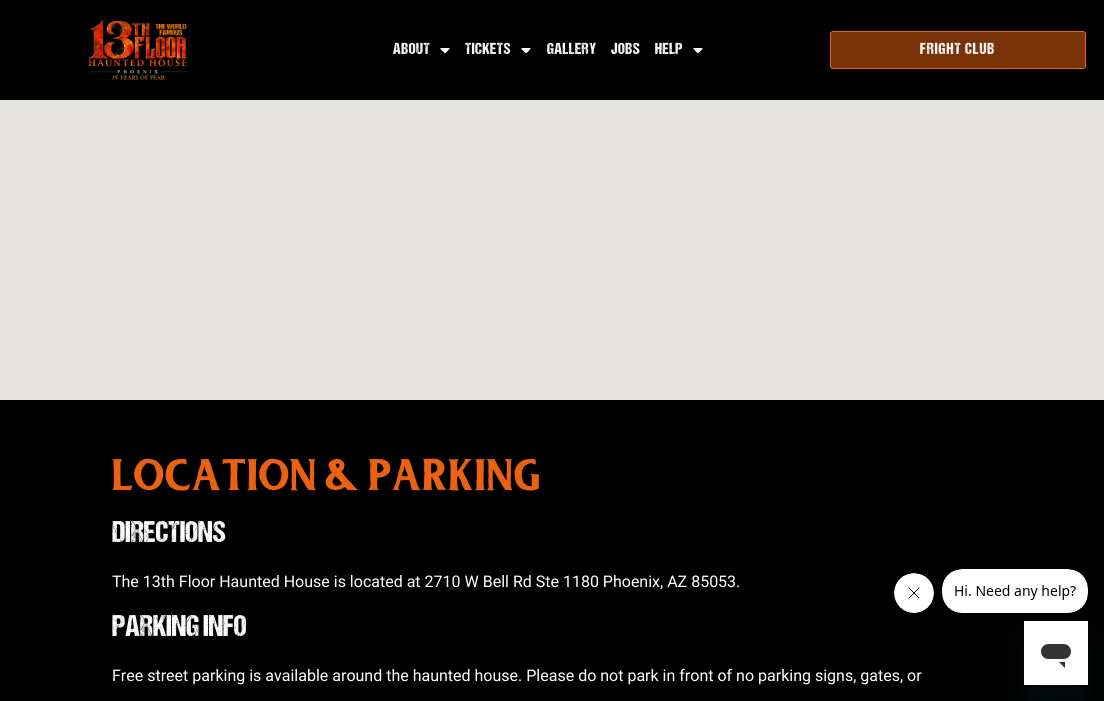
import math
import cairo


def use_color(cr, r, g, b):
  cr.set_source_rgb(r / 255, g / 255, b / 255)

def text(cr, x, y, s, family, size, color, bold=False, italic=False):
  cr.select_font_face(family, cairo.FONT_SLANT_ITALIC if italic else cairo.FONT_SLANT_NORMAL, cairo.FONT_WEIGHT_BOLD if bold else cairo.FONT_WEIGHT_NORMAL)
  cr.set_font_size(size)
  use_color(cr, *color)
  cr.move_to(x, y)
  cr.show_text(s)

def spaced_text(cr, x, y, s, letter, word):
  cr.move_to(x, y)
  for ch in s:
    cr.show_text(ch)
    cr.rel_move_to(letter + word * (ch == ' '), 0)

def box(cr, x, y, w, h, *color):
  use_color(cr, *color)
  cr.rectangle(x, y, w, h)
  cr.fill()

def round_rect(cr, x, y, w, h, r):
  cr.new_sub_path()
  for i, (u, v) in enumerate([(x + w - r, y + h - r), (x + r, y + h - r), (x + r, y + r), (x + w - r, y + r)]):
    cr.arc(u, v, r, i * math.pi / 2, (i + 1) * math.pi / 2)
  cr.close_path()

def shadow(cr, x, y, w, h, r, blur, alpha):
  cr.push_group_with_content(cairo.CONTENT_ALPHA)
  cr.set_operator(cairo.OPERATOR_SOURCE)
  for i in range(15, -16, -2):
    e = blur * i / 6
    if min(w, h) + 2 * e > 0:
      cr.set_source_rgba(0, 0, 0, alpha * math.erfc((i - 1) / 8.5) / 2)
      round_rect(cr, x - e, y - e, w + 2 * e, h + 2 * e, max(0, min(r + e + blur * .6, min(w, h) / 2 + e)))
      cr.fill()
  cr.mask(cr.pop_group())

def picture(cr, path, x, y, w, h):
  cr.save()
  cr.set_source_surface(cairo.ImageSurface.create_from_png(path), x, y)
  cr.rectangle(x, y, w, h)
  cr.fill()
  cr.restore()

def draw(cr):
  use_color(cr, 0, 0, 0)
  cr.paint()
  picture(cr, "img_01.png", 88, 20, 100, 60)
  picture(cr, "img_02.png", 440, 48, 10, 6)
  picture(cr, "img_02.png", 521, 48, 10, 6)
  picture(cr, "img_02.png", 693, 48, 10, 6)
  use_color(cr, 122, 50, 9)
  round_rect(cr, 830.5, 31.5, 255, 37, 2.5)
  cr.fill_preserve()
  use_color(cr, 234, 97, 18)
  cr.set_line_width(1)
  cr.stroke()
  box(cr, 0, 100, 1104, 300, 229, 227, 223)
  picture(cr, "img_03.png", 894, 573, 40, 40)
  picture(cr, "img_04.png", 942, 569, 146, 44)
  use_color(cr, 23, 73, 77)
  shadow(cr, 1024, 641, 64, 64, 0, 15, 0.15)
  picture(cr, "img_05.png", 1024, 621, 64, 64)
  cr.select_font_face("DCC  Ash")
  cr.set_font_size(16)
  use_color(cr, 255, 255, 255)
  spaced_text(cr, 393, 54, "ABOUT", 0.5, 0)
  spaced_text(cr, 465, 54, "TICKETS", 0.5, 0)
  spaced_text(cr, 547, 54, "GALLERY", 0.5, 0)
  spaced_text(cr, 611, 54, "JOBS", 0.5, 0)
  spaced_text(cr, 655, 54, "HELP", 0.5, 0)
  spaced_text(cr, 920, 54, "FRIGHT CLUB", 1, 0)
  text(cr, 112, 490, "LOCATION & PARKING", "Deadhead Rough", 40, (234, 97, 18))
  text(cr, 112, 542, "DIRECTIONS", "DCC  Ash", 30, (255, 255, 255))
  text(cr, 112, 587, "The 13th Floor Haunted House is located at 2710 W Bell Rd Ste 1180 Phoenix, AZ 85053.", "Roboto", 16, (255, 255, 255))
  text(cr, 112, 636, "PARKING INFO", "DCC  Ash", 30, (255, 255, 255))
  text(cr, 112, 681, "Free street parking is available around the haunted house. Please do not park in front of no parking signs, gates, or", "Roboto", 16, (255, 255, 255))


surface = cairo.ImageSurface(cairo.FORMAT_RGB24, 1104, 701)
cr = cairo.Context(surface)
options = cairo.FontOptions()
options.set_hint_metrics(cairo.HINT_METRICS_OFF)
options.set_hint_style(cairo.HINT_STYLE_NONE)
cr.set_font_options(options)
cr.set_miter_limit(4)
draw(cr)
surface.write_to_png("out.png")
